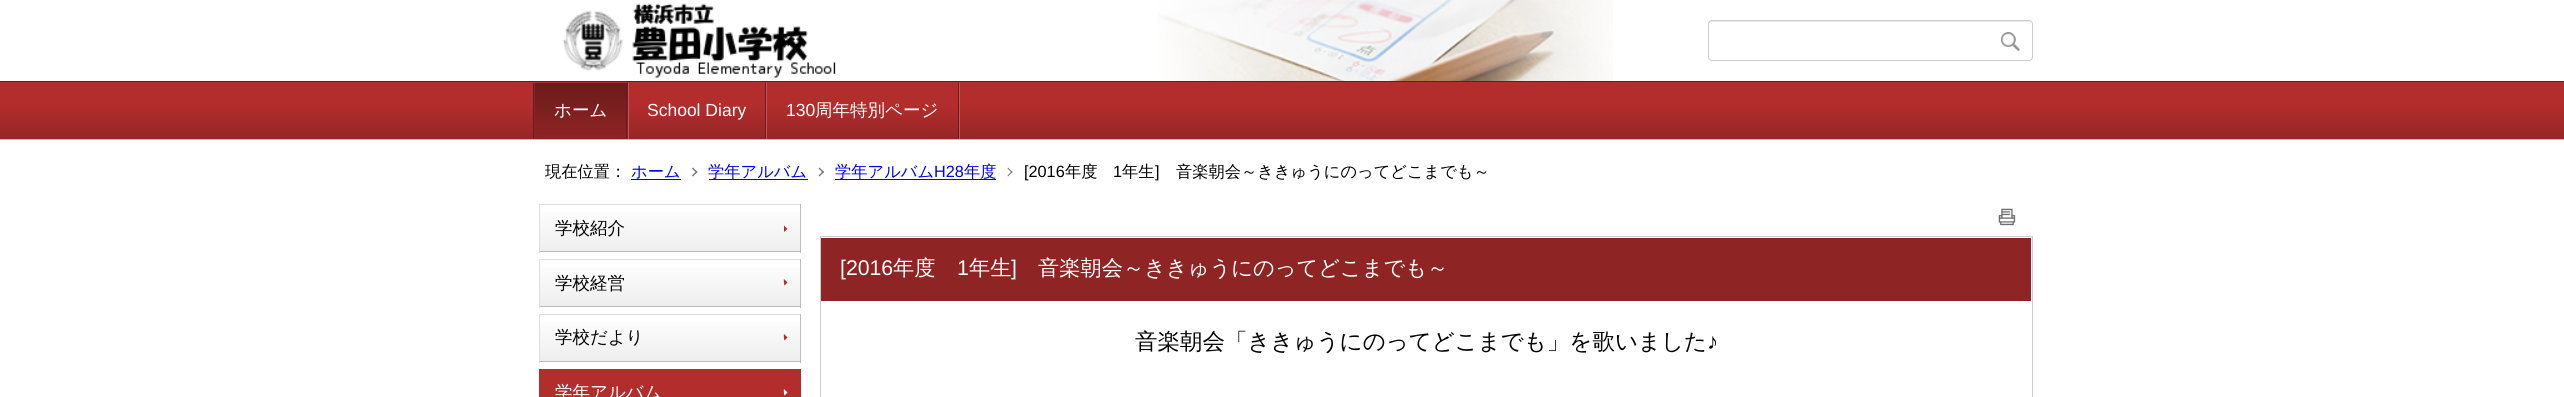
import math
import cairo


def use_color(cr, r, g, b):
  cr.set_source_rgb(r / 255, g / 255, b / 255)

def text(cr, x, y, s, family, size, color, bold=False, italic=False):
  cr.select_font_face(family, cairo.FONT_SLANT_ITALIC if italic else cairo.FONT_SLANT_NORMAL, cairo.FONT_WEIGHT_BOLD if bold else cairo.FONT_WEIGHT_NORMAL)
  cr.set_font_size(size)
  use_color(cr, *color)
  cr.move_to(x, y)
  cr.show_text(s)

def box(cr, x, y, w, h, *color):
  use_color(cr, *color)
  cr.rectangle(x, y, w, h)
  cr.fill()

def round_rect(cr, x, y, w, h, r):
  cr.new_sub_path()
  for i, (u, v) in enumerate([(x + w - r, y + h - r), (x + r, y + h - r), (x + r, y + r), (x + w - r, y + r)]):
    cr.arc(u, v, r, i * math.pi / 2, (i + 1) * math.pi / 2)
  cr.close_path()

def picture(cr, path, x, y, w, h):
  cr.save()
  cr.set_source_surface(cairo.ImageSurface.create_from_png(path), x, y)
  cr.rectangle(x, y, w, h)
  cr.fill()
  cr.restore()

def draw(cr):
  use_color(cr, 255, 255, 255)
  cr.paint()
  picture(cr, "img_01.png", 1158, 0, 455, 81)
  picture(cr, "img_02.png", 562, 3, 274, 75)
  use_color(cr, 236, 236, 236)
  cr.new_path()
  cr.move_to(1711, 22)
  cr.line_to(2029, 22)
  cr.curve_to(2030, 22, 2031, 24, 2031, 25)
  cr.line_to(2031, 24)
  cr.curve_to(2031, 22, 2030, 21, 2028, 21)
  cr.line_to(1712, 21)
  cr.curve_to(1710, 21, 1709, 22, 1709, 24)
  cr.line_to(1709, 25)
  cr.curve_to(1709, 24, 1710, 22, 1711, 22)
  cr.close_path()
  cr.fill()
  round_rect(cr, 1708.5, 20.5, 324, 40, 3.5)
  use_color(cr, 204, 204, 204)
  cr.set_line_width(1)
  cr.stroke()
  picture(cr, "img_03.png", 2000, 32, 20, 20)
  box(cr, 0, 82, 2564, 23, 179, 45, 45)
  box(cr, 0, 81, 2564, 1, 107, 27, 27)
  box(cr, 0, 139, 2564, 1, 187, 187, 187)
  gradient = cairo.LinearGradient(1283, 105, 1283, 139)
  gradient.add_color_stop_rgba(0, 0.702, 0.176, 0.176, 1)
  gradient.add_color_stop_rgba(1, 0.588, 0.149, 0.149, 1)
  cr.set_source(gradient)
  cr.rectangle(0, 105, 2564, 34)
  cr.fill()
  box(cr, 533, 83, 1, 56, 107, 27, 27)
  gradient = cairo.LinearGradient(581, 83, 581, 139)
  gradient.add_color_stop_rgba(0, 0.42, 0.106, 0.106, 1)
  gradient.add_color_stop_rgba(1, 0.561, 0.141, 0.141, 1)
  cr.set_source(gradient)
  cr.rectangle(535, 83, 93, 56)
  cr.fill()
  box(cr, 626, 83, 1, 56, 107, 27, 27)
  box(cr, 534, 83, 1, 56, 143, 36, 36)
  box(cr, 765, 83, 1, 56, 107, 27, 27)
  box(cr, 628, 83, 1, 56, 194, 87, 87)
  box(cr, 959, 83, 1, 56, 194, 87, 87)
  box(cr, 958, 83, 1, 56, 107, 27, 27)
  box(cr, 766, 83, 1, 56, 194, 87, 87)
  box(cr, 631, 179, 50, 1, 0, 0, 238)
  use_color(cr, 119, 119, 119)
  cr.new_path()
  cr.move_to(693, 167.5)
  cr.line_to(697.5, 172)
  cr.line_to(696.5, 173)
  cr.line_to(692, 168.5)
  cr.close_path()
  cr.fill()
  cr.new_path()
  cr.move_to(696.5, 171)
  cr.line_to(697.5, 172)
  cr.line_to(693, 176.5)
  cr.line_to(692, 175.5)
  cr.close_path()
  cr.fill()
  box(cr, 709, 179, 99, 1, 0, 0, 238)
  use_color(cr, 119, 119, 119)
  cr.new_path()
  cr.move_to(819.5, 167.5)
  cr.line_to(824, 172)
  cr.line_to(823, 173)
  cr.line_to(818.5, 168.5)
  cr.close_path()
  cr.fill()
  cr.new_path()
  cr.move_to(823, 171)
  cr.line_to(824, 172)
  cr.line_to(819.5, 176.5)
  cr.line_to(818.5, 175.5)
  cr.close_path()
  cr.fill()
  box(cr, 835, 179, 161, 1, 0, 0, 238)
  use_color(cr, 119, 119, 119)
  cr.new_path()
  cr.move_to(1008, 167.5)
  cr.line_to(1012.5, 172)
  cr.line_to(1012, 173)
  cr.line_to(1007.5, 168.5)
  cr.close_path()
  cr.fill()
  cr.new_path()
  cr.move_to(1012, 171)
  cr.line_to(1012.5, 172)
  cr.line_to(1008, 176.5)
  cr.line_to(1007.5, 175.5)
  cr.close_path()
  cr.fill()
  gradient = cairo.LinearGradient(670, 205, 670, 251)
  gradient.add_color_stop_rgba(0, 1, 1, 1, 1)
  gradient.add_color_stop_rgba(1, 0.933, 0.933, 0.933, 1)
  cr.set_source(gradient)
  cr.rectangle(540, 212, 260, 39)
  cr.fill()
  box(cr, 539, 204, 262, 1, 221, 221, 221)
  box(cr, 800, 204, 1, 49, 187, 187, 187)
  box(cr, 539, 251, 262, 1, 187, 187, 187)
  box(cr, 539, 204, 1, 49, 221, 221, 221)
  use_color(cr, 179, 45, 45)
  cr.new_path()
  cr.move_to(784, 227)
  cr.line_to(784, 225.5)
  cr.line_to(787.5, 229)
  cr.line_to(784, 232)
  cr.close_path()
  cr.fill()
  gradient = cairo.LinearGradient(670, 260, 670, 306)
  gradient.add_color_stop_rgba(0, 1, 1, 1, 1)
  gradient.add_color_stop_rgba(1, 0.933, 0.933, 0.933, 1)
  cr.set_source(gradient)
  cr.rectangle(540, 267, 260, 39)
  cr.fill()
  box(cr, 539, 259, 262, 1, 221, 221, 221)
  box(cr, 800, 259, 1, 49, 187, 187, 187)
  box(cr, 539, 306, 262, 1, 187, 187, 187)
  box(cr, 539, 259, 1, 49, 221, 221, 221)
  use_color(cr, 179, 45, 45)
  cr.new_path()
  cr.move_to(787.5, 282.5)
  cr.line_to(784.5, 285.5)
  cr.curve_to(784, 285, 783.5, 279.5, 784, 279)
  cr.close_path()
  cr.fill()
  gradient = cairo.LinearGradient(670, 315, 670, 361)
  gradient.add_color_stop_rgba(0, 1, 1, 1, 1)
  gradient.add_color_stop_rgba(1, 0.933, 0.933, 0.933, 1)
  cr.set_source(gradient)
  cr.rectangle(540, 322, 260, 39)
  cr.fill()
  box(cr, 539, 314, 262, 1, 221, 221, 221)
  box(cr, 800, 314, 1, 49, 187, 187, 187)
  box(cr, 539, 361, 262, 1, 187, 187, 187)
  box(cr, 539, 314, 1, 49, 221, 221, 221)
  use_color(cr, 179, 45, 45)
  cr.new_path()
  cr.move_to(787.5, 337.5)
  cr.line_to(784.5, 340.5)
  cr.curve_to(784, 340, 783.5, 334.5, 784, 334)
  cr.close_path()
  cr.fill()
  box(cr, 539, 369, 262, 28, 179, 45, 45)
  use_color(cr, 255, 255, 255)
  cr.new_path()
  cr.move_to(787.5, 392.5)
  cr.line_to(784.5, 395.5)
  cr.curve_to(784, 395, 783.5, 389.5, 784, 389)
  cr.close_path()
  cr.fill()
  picture(cr, "img_04.png", 1998, 208, 18, 18)
  cr.rectangle(820.5, 236.5, 1212, 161)
  use_color(cr, 204, 204, 204)
  cr.stroke()
  box(cr, 821, 238, 1210, 63, 143, 36, 36)
  text(cr, 554, 116, "ホーム", "WenQuanYi Zen Hei Medium", 17.5, (255, 255, 255))
  text(cr, 647, 116, "School Diary", "Liberation Sans", 17.5, (255, 255, 255))
  text(cr, 786, 116, "130", "Liberation Sans", 17.5, (255, 255, 255))
  text(cr, 815, 116, "周年特別ページ", "WenQuanYi Zen Hei Medium", 17.5, (255, 255, 255))
  text(cr, 545, 177, "現在位置：", "WenQuanYi Zen Hei Medium", 16.25, (0, 0, 0))
  text(cr, 631, 177, "ホーム", "WenQuanYi Zen Hei Medium", 16.25, (0, 0, 238))
  text(cr, 708, 177, "学年アルバム", "WenQuanYi Zen Hei Medium", 16.25, (0, 0, 238))
  text(cr, 835, 177, "学年アルバム", "WenQuanYi Zen Hei Medium", 16.25, (0, 0, 238))
  text(cr, 934, 177, "H28", "Liberation Sans", 16.25, (0, 0, 238))
  text(cr, 964, 177, "年度", "WenQuanYi Zen Hei Medium", 16.25, (0, 0, 238))
  text(cr, 1024, 177, "[2016", "Liberation Sans", 16.25, (0, 0, 0))
  text(cr, 1065, 177, "年度", "WenQuanYi Zen Hei Medium", 16.25, (0, 0, 0))
  text(cr, 1113, 177, "1", "Liberation Sans", 16.25, (0, 0, 0))
  text(cr, 1122, 177, "年生", "WenQuanYi Zen Hei Medium", 16.25, (0, 0, 0))
  text(cr, 1155, 177, "]", "Liberation Sans", 16.25, (0, 0, 0))
  text(cr, 1176, 177, "音楽朝会～ききゅうにのってどこまでも～", "WenQuanYi Zen Hei Medium", 16.25, (0, 0, 0))
  text(cr, 555, 234, "学校紹介", "WenQuanYi Zen Hei Medium", 17.5, (0, 0, 0))
  text(cr, 555, 289, "学校経営", "WenQuanYi Zen Hei Medium", 17.5, (0, 0, 0))
  text(cr, 555, 343, "学校だより", "WenQuanYi Zen Hei Medium", 17.5, (0, 0, 0))
  text(cr, 555, 398, "学年アルバム", "WenQuanYi Zen Hei Medium", 17.5, (255, 255, 255))
  text(cr, 840, 275, "[2016", "Liberation Sans", 21.25, (255, 255, 255))
  text(cr, 893, 275, "年度", "WenQuanYi Zen Hei Medium", 21.25, (255, 255, 255))
  text(cr, 957, 275, "1", "Liberation Sans", 21.25, (255, 255, 255))
  text(cr, 969, 275, "年生", "WenQuanYi Zen Hei Medium", 21.25, (255, 255, 255))
  text(cr, 1011, 275, "]", "Liberation Sans", 21.25, (255, 255, 255))
  text(cr, 1038, 275, "音楽朝会～ききゅうにのってどこまでも～", "WenQuanYi Zen Hei Medium", 21.25, (255, 255, 255))
  text(cr, 1135, 349, "音楽朝会「ききゅうにのってどこまでも」を歌いました", "WenQuanYi Zen Hei Medium", 22.5, (0, 0, 0))
  text(cr, 1707, 349, "♪", "Liberation Sans", 22.5, (0, 0, 0))


surface = cairo.ImageSurface(cairo.FORMAT_RGB24, 2564, 397)
cr = cairo.Context(surface)
options = cairo.FontOptions()
options.set_hint_metrics(cairo.HINT_METRICS_OFF)
options.set_hint_style(cairo.HINT_STYLE_NONE)
cr.set_font_options(options)
cr.set_miter_limit(4)
draw(cr)
surface.write_to_png("out.png")
